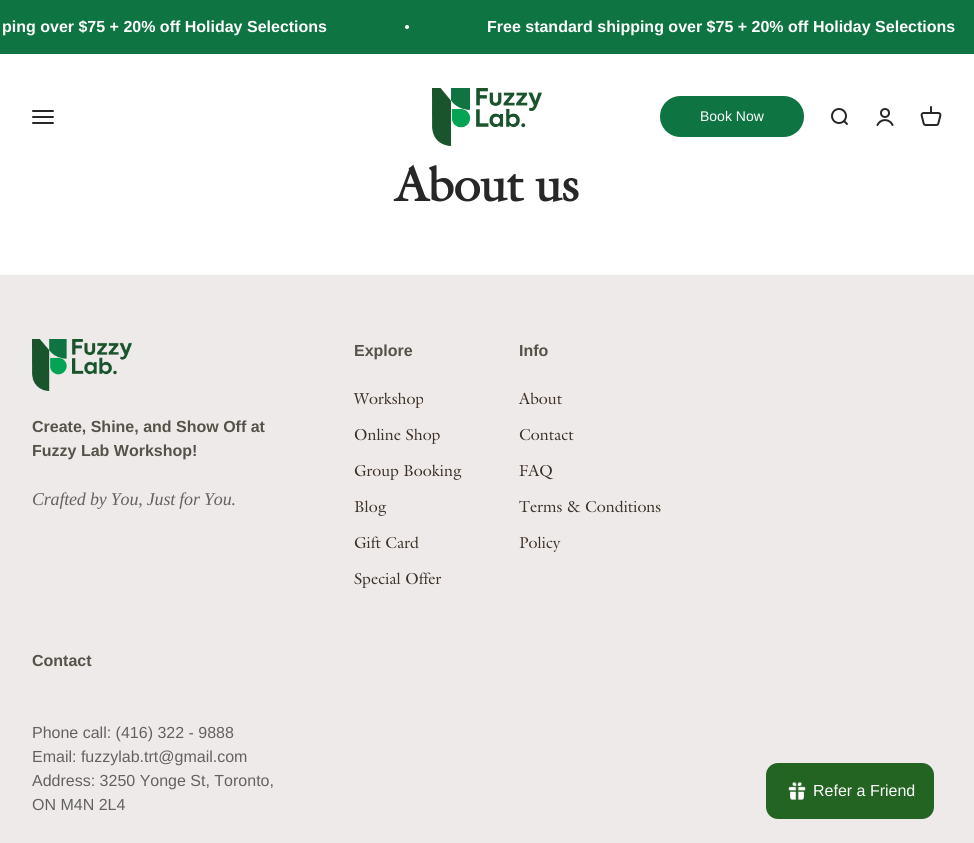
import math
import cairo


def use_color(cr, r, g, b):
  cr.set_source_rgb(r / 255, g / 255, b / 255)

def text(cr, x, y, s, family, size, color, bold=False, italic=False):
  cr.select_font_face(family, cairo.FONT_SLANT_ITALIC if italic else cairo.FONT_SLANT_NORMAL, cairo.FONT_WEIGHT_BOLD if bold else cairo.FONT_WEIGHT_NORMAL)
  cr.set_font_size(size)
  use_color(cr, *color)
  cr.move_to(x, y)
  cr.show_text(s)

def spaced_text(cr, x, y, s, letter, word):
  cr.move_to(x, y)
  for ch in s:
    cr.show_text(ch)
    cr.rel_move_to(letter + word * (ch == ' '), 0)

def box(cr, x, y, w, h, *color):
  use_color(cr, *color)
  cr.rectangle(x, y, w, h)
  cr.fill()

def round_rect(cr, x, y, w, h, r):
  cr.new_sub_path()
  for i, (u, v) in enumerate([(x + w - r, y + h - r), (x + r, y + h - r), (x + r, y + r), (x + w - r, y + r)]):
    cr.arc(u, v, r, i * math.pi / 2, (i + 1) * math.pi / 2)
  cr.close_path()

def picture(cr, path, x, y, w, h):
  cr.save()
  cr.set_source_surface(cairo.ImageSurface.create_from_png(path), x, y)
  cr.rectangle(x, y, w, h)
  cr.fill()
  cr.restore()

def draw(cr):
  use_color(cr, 255, 255, 255)
  cr.paint()
  box(cr, 0, 0, 974, 54, 14, 116, 66)
  use_color(cr, 255, 255, 255)
  cr.arc(407, 27, 2, 0, 2 * math.pi)
  cr.fill()
  picture(cr, "img_01.png", 32, 110, 22, 14)
  picture(cr, "img_02.png", 432, 88, 110, 58)
  use_color(cr, 14, 116, 66)
  round_rect(cr, 660, 96, 144, 41, 20.5)
  cr.fill()
  picture(cr, "img_03.png", 831, 108, 17, 17)
  cr.arc(885, 113, 4, 0, 2 * math.pi)
  use_color(cr, 39, 39, 39)
  cr.stroke()
  cr.new_path()
  cr.move_to(877.5, 125)
  cr.curve_to(880.5, 118.5, 889.5, 118.5, 892.5, 125)
  cr.set_line_cap(cairo.LINE_CAP_ROUND)
  cr.stroke()
  picture(cr, "img_04.png", 920, 106, 22, 20)
  box(cr, 0, 275, 974, 568, 238, 234, 233)
  picture(cr, "img_05.png", 32, 339, 100, 52)
  use_color(cr, 35, 100, 35)
  round_rect(cr, 766, 763, 168, 56, 12)
  cr.fill()
  picture(cr, "img_06.png", 788, 782, 18, 18)
  text(cr, 2, 32, "ping over $75 + 20% off Holiday Selections", "Liberation Sans", 16, (255, 255, 255), bold=True)
  text(cr, 487, 32, "Free standard shipping over $75 + 20% off Holiday Selections", "Liberation Sans", 16, (255, 255, 255), bold=True)
  text(cr, 700, 121, "Book Now", "Liberation Sans", 14, (255, 255, 255))
  cr.select_font_face("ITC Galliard", cairo.FONT_SLANT_NORMAL, cairo.FONT_WEIGHT_BOLD)
  cr.set_font_size(48)
  use_color(cr, 39, 39, 39)
  spaced_text(cr, 395, 201, "About us", -0.5, 0)
  text(cr, 32, 432, "Create, Shine, and Show Off at", "Liberation Sans", 16, (85, 82, 73), bold=True)
  text(cr, 32, 456, "Fuzzy Lab Workshop!", "Liberation Sans", 16, (85, 82, 73), bold=True)
  cr.select_font_face("Liberation Serif", cairo.FONT_SLANT_ITALIC)
  cr.set_font_size(18)
  use_color(cr, 99, 98, 97)
  spaced_text(cr, 32, 505, "Crafted by You, Just for You.", -0.2, 0)
  text(cr, 354, 356, "Explore", "Liberation Sans", 16, (85, 82, 73), bold=True)
  text(cr, 354, 404, "Workshop", "ITC Galliard", 16, (61, 50, 42))
  text(cr, 354, 440, "Online Shop", "ITC Galliard", 16, (61, 50, 42))
  text(cr, 354, 476, "Group Booking", "ITC Galliard", 16, (61, 50, 42))
  text(cr, 354, 512, "Blog", "ITC Galliard", 16, (61, 50, 42))
  text(cr, 354, 548, "Gift Card", "ITC Galliard", 16, (61, 50, 42))
  text(cr, 354, 584, "Special Offer", "ITC Galliard", 16, (61, 50, 42))
  text(cr, 519, 356, "Info", "Liberation Sans", 16, (85, 82, 73), bold=True)
  text(cr, 519, 404, "About", "ITC Galliard", 16, (61, 50, 42))
  text(cr, 519, 440, "Contact", "ITC Galliard", 16, (61, 50, 42))
  text(cr, 519, 476, "FAQ", "ITC Galliard", 16, (61, 50, 42))
  text(cr, 519, 512, "Terms & Conditions", "ITC Galliard", 16, (61, 50, 42))
  text(cr, 519, 548, "Policy", "ITC Galliard", 16, (61, 50, 42))
  text(cr, 32, 666, "Contact", "Liberation Sans", 16, (85, 82, 73), bold=True)
  text(cr, 32, 738, "Phone call: (416) 322 - 9888", "Liberation Sans", 16, (99, 98, 97))
  text(cr, 32, 762, "Email: fuzzylab.trt@gmail.com", "Liberation Sans", 16, (99, 98, 97))
  text(cr, 32, 786, "Address: 3250 Yonge St, Toronto,", "Liberation Sans", 16, (99, 98, 97))
  text(cr, 32, 810, "ON M4N 2L4", "Liberation Sans", 16, (99, 98, 97))
  text(cr, 813, 796, "Refer a Friend", "Liberation Sans", 16, (255, 255, 255))


surface = cairo.ImageSurface(cairo.FORMAT_RGB24, 974, 843)
cr = cairo.Context(surface)
options = cairo.FontOptions()
options.set_hint_metrics(cairo.HINT_METRICS_OFF)
options.set_hint_style(cairo.HINT_STYLE_NONE)
cr.set_font_options(options)
cr.set_miter_limit(4)
draw(cr)
surface.write_to_png("out.png")
